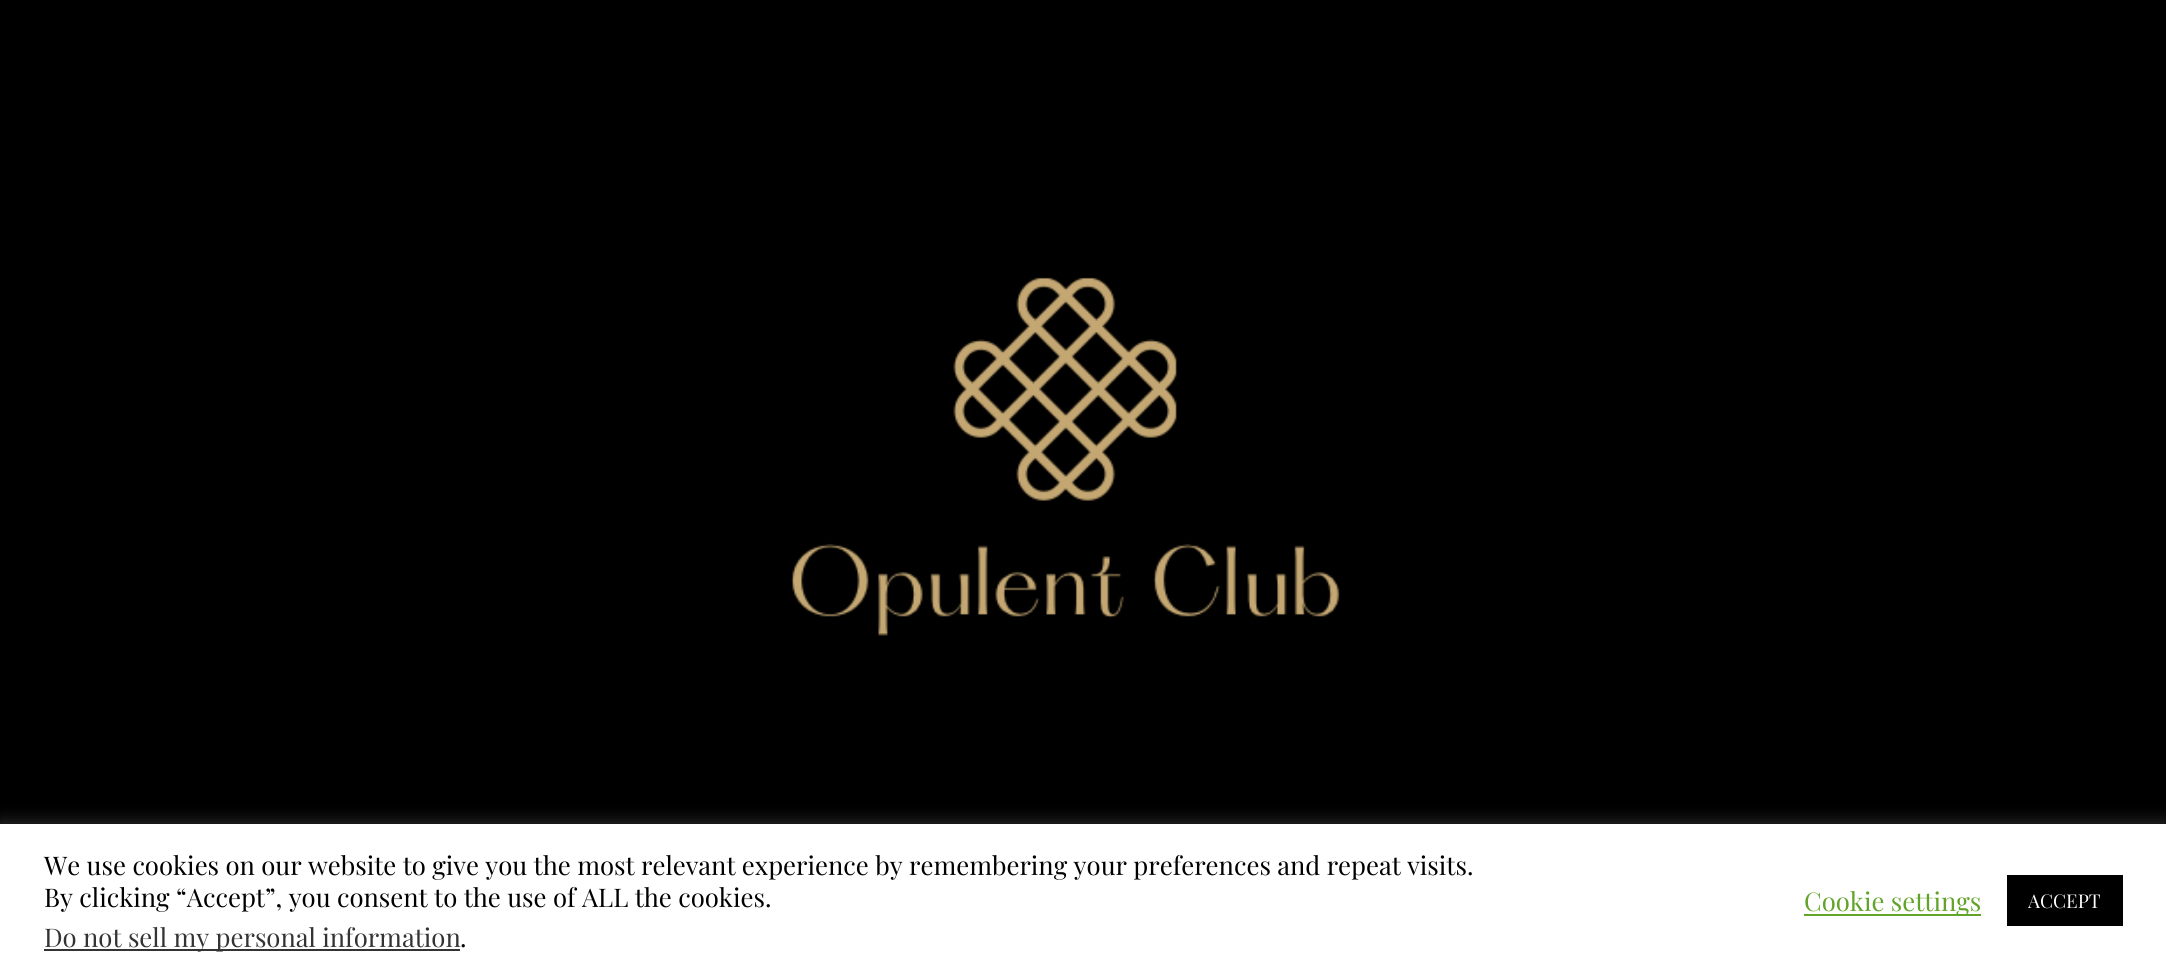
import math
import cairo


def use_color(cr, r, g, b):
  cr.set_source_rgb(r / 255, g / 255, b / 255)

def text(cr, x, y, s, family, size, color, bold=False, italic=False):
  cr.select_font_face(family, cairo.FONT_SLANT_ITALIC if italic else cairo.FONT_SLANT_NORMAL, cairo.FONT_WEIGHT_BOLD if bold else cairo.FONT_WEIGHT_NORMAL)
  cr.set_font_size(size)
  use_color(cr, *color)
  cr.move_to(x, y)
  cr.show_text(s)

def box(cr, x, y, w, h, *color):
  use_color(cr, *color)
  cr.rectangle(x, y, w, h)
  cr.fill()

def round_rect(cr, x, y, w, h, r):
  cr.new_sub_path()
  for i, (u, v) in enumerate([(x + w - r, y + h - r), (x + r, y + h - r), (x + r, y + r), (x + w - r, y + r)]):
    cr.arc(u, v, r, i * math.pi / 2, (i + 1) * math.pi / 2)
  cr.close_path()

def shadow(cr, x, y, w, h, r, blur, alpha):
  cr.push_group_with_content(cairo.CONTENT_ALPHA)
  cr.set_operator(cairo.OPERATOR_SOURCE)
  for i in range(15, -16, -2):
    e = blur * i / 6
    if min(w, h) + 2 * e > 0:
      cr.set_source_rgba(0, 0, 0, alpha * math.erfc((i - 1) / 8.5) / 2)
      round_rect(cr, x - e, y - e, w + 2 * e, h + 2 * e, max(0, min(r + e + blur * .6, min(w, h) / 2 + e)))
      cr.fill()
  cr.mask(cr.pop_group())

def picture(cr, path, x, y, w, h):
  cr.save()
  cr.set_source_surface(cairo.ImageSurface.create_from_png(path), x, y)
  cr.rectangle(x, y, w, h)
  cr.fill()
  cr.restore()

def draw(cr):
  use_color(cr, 0, 0, 0)
  cr.paint()
  picture(cr, "img_01.png", 791, 277, 549, 359)
  use_color(cr, 172, 171, 171)
  shadow(cr, 0, 823, 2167, 152, 0, 9, 0.3)
  box(cr, 0, 824, 2166, 152, 255, 255, 255)
  box(cr, 44, 949, 416, 2, 51, 51, 51)
  box(cr, 1804, 914, 177, 2, 98, 163, 41)
  box(cr, 2007, 875, 116, 51, 0, 0, 0)
  text(cr, 44, 875, "We use cookies on our website to give you the most relevant experience by remembering your preferences and repeat visits.", "Playfair Display", 25.67, (0, 0, 0))
  text(cr, 44, 907, "By clicking “Accept”, you consent to the use of ALL the cookies.", "Playfair Display", 25.67, (0, 0, 0))
  text(cr, 44, 947, "Do not sell my personal information", "Playfair Display", 25.67, (51, 51, 51))
  text(cr, 460, 947, ".", "Playfair Display", 25.67, (0, 0, 0))
  text(cr, 1804, 911, "Cookie settings", "Playfair Display", 25.67, (98, 163, 41))
  text(cr, 2028, 908, "ACCEPT", "Playfair Display", 19, (255, 255, 255))


surface = cairo.ImageSurface(cairo.FORMAT_RGB24, 2166, 976)
cr = cairo.Context(surface)
options = cairo.FontOptions()
options.set_hint_metrics(cairo.HINT_METRICS_OFF)
options.set_hint_style(cairo.HINT_STYLE_NONE)
cr.set_font_options(options)
cr.set_miter_limit(4)
draw(cr)
surface.write_to_png("out.png")
